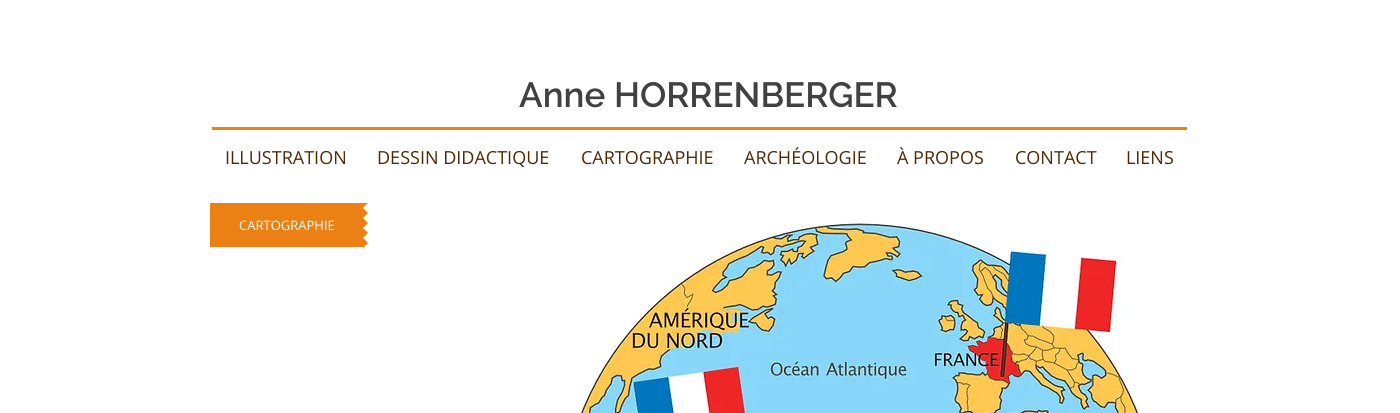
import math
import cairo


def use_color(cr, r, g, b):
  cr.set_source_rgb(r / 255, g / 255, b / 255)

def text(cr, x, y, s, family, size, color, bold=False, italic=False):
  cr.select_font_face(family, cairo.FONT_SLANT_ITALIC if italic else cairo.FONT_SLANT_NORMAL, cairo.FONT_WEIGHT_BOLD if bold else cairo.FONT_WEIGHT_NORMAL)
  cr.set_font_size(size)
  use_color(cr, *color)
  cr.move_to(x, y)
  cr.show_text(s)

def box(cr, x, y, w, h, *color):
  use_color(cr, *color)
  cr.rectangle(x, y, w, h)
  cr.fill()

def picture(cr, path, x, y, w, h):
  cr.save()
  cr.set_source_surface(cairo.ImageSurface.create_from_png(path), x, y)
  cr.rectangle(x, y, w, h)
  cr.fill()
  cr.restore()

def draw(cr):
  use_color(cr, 255, 255, 255)
  cr.paint()
  box(cr, 212, 127, 975, 3, 235, 128, 21)
  box(cr, 210, 203, 153, 44, 235, 128, 21)
  cr.save()
  cr.rectangle(363, 203, 5, 44)
  cr.clip()
  cr.new_path()
  cr.move_to(363, 208)
  cr.line_to(363, 198)
  cr.line_to(368, 203)
  cr.close_path()
  cr.fill()
  cr.restore()
  cr.new_path()
  cr.move_to(363, 218)
  cr.line_to(363, 208)
  cr.line_to(368, 213)
  cr.close_path()
  cr.move_to(363, 228)
  cr.line_to(363, 218)
  cr.line_to(368, 223)
  cr.close_path()
  cr.move_to(363, 238)
  cr.line_to(363, 228)
  cr.line_to(368, 233)
  cr.close_path()
  cr.move_to(363, 248)
  cr.line_to(363, 238)
  cr.line_to(368, 243)
  cr.close_path()
  cr.fill()
  picture(cr, "img_01.png", 579, 220, 560, 193)
  text(cr, 519, 107, "Anne HORRENBERGER", "Raleway SemiBold", 35, (65, 65, 65))
  text(cr, 225, 164, "ILLUSTRATION", "Open Sans", 18, (78, 43, 7))
  text(cr, 377, 164, "DESSIN DIDACTIQUE", "Open Sans", 18, (78, 43, 7))
  text(cr, 581, 164, "CARTOGRAPHIE", "Open Sans", 18, (78, 43, 7))
  text(cr, 744, 164, "ARCHÉOLOGIE", "Open Sans", 18, (78, 43, 7))
  text(cr, 897, 164, "À PROPOS", "Open Sans", 18, (78, 43, 7))
  text(cr, 1015, 164, "CONTACT", "Open Sans", 18, (78, 43, 7))
  text(cr, 1126, 164, "LIENS", "Open Sans", 18, (78, 43, 7))
  text(cr, 239, 230, "CARTOGRAPHIE", "Open Sans", 13, (255, 255, 255))


surface = cairo.ImageSurface(cairo.FORMAT_RGB24, 1400, 413)
cr = cairo.Context(surface)
options = cairo.FontOptions()
options.set_hint_metrics(cairo.HINT_METRICS_OFF)
options.set_hint_style(cairo.HINT_STYLE_NONE)
cr.set_font_options(options)
cr.set_miter_limit(4)
draw(cr)
surface.write_to_png("out.png")
